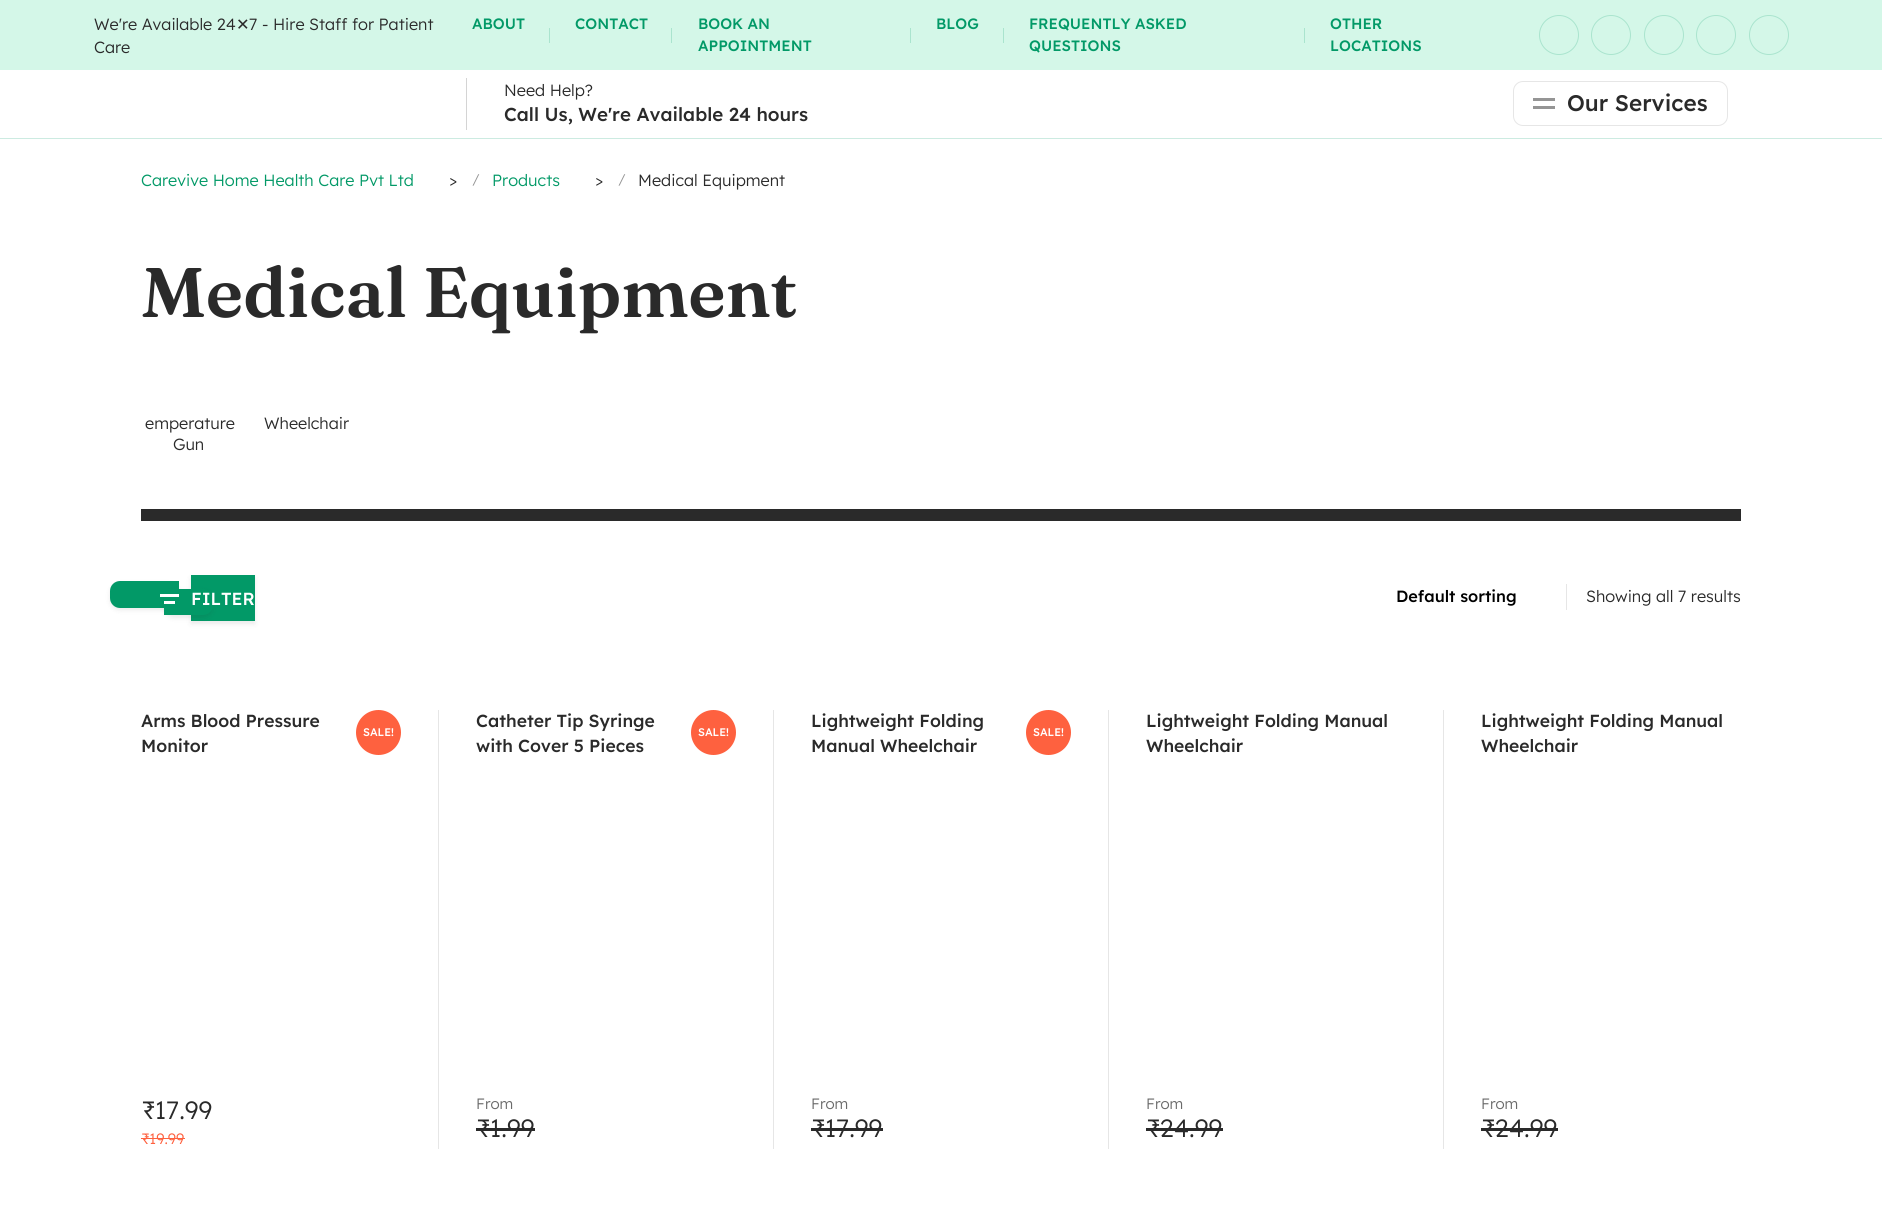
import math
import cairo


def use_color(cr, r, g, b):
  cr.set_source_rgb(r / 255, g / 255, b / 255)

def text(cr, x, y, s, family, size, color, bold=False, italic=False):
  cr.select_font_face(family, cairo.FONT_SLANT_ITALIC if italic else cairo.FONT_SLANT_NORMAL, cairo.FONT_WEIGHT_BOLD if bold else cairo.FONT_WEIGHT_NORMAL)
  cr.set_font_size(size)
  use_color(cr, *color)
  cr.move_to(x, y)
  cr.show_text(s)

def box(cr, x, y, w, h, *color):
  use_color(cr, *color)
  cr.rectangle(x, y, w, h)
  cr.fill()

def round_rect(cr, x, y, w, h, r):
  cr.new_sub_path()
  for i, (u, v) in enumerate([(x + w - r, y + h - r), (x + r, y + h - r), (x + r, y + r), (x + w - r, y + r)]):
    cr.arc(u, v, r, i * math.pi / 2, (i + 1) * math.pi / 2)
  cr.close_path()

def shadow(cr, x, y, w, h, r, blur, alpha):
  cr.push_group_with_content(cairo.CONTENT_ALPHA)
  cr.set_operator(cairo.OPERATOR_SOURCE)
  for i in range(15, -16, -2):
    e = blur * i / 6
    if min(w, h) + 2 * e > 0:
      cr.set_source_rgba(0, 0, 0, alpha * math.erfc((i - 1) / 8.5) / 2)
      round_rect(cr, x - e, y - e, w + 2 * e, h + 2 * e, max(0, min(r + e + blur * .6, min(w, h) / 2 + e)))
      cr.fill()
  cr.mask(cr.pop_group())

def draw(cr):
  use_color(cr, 255, 255, 255)
  cr.paint()
  box(cr, 0, 0, 1882, 70, 212, 247, 232)
  box(cr, 549, 28, 1, 15, 170, 228, 206)
  box(cr, 671, 28, 1, 15, 170, 228, 206)
  box(cr, 910, 28, 1, 15, 170, 228, 206)
  box(cr, 1003, 28, 1, 15, 170, 228, 206)
  box(cr, 1304, 28, 1, 15, 170, 228, 206)
  cr.arc(1559, 35, 19.5, 0, 2 * math.pi)
  cr.set_line_width(1)
  cr.stroke()
  cr.arc(1611, 35, 19.5, 0, 2 * math.pi)
  cr.stroke()
  cr.arc(1664, 35, 19.5, 0, 2 * math.pi)
  cr.stroke()
  cr.arc(1716, 35, 19.5, 0, 2 * math.pi)
  cr.stroke()
  cr.arc(1769, 35, 19.5, 0, 2 * math.pi)
  cr.stroke()
  box(cr, 466, 78, 1, 52, 212, 212, 212)
  round_rect(cr, 1513.5, 81.5, 214, 44, 9.5)
  use_color(cr, 230, 230, 230)
  cr.stroke()
  box(cr, 1533, 98, 22, 3, 149, 149, 149)
  box(cr, 1533, 106, 22, 3, 149, 149, 149)
  box(cr, 0, 138, 1882, 1, 204, 235, 225)
  box(cr, 141, 509, 1600, 12, 42, 42, 42)
  use_color(cr, 42, 42, 42)
  shadow(cr, 110, 584, 69, 26, 10, 2.5, 0.1)
  use_color(cr, 2, 153, 103)
  cr.new_path()
  cr.move_to(120, 581)
  cr.line_to(179, 581)
  cr.line_to(179, 608)
  cr.line_to(120, 608)
  cr.curve_to(114.5, 608, 110, 603.5, 110, 598)
  cr.line_to(110, 591)
  cr.curve_to(110, 585.5, 114.5, 581, 120, 581)
  cr.close_path()
  cr.fill()
  use_color(cr, 42, 42, 42)
  shadow(cr, 191, 578, 64, 46, 0, 2.5, 0.1)
  box(cr, 191, 575, 64, 46, 2, 153, 103)
  use_color(cr, 42, 42, 42)
  shadow(cr, 164, 591, 49, 27, 10, 2.5, 0.1)
  use_color(cr, 2, 153, 103)
  cr.new_path()
  cr.move_to(164, 589)
  cr.line_to(203, 589)
  cr.curve_to(208.5, 589, 213, 593.5, 213, 599)
  cr.line_to(213, 605)
  cr.curve_to(213, 610.5, 208.5, 615, 203, 615)
  cr.line_to(164, 615)
  cr.close_path()
  cr.fill()
  box(cr, 160, 594, 19, 3, 255, 255, 255)
  box(cr, 164, 601, 11, 3, 255, 255, 255)
  box(cr, 1566, 584, 1, 26, 230, 230, 230)
  use_color(cr, 254, 97, 63)
  cr.arc(378.5, 732.5, 22.5, 0, 2 * math.pi)
  cr.fill()
  box(cr, 141, 1138, 44, 1, 254, 97, 63)
  box(cr, 438, 710, 1, 439, 230, 230, 230)
  use_color(cr, 254, 97, 63)
  cr.arc(713.5, 732.5, 22.5, 0, 2 * math.pi)
  cr.fill()
  box(cr, 476, 1128, 59, 3, 42, 42, 42)
  box(cr, 773, 710, 1, 439, 230, 230, 230)
  use_color(cr, 254, 97, 63)
  cr.arc(1048.5, 732.5, 22.5, 0, 2 * math.pi)
  cr.fill()
  box(cr, 811, 1128, 72, 3, 42, 42, 42)
  box(cr, 1108, 710, 1, 439, 230, 230, 230)
  box(cr, 1146, 1128, 77, 3, 42, 42, 42)
  box(cr, 1443, 710, 1, 439, 230, 230, 230)
  box(cr, 1481, 1128, 77, 3, 42, 42, 42)
  text(cr, 94, 30, "We're Available 24", "Lexend Light", 16.25, (42, 42, 42))
  text(cr, 236, 30, "✕", "DejaVu Sans", 16.25, (42, 42, 42))
  text(cr, 249, 30, "7 - Hire Staff for Patient", "Lexend Light", 16.25, (42, 42, 42))
  text(cr, 94, 53, "Care", "Lexend Light", 16.25, (42, 42, 42))
  text(cr, 472, 29, "ABOUT", "Lexend Medium", 15, (2, 153, 103))
  text(cr, 575, 29, "CONTACT", "Lexend Medium", 15, (2, 153, 103))
  text(cr, 698, 29, "BOOK AN", "Lexend Medium", 15, (2, 153, 103))
  text(cr, 698, 51, "APPOINTMENT", "Lexend Medium", 15, (2, 153, 103))
  text(cr, 936, 29, "BLOG", "Lexend Medium", 15, (2, 153, 103))
  text(cr, 1029, 29, "FREQUENTLY ASKED", "Lexend Medium", 15, (2, 153, 103))
  text(cr, 1029, 51, "QUESTIONS", "Lexend Medium", 15, (2, 153, 103))
  text(cr, 1330, 29, "OTHER", "Lexend Medium", 15, (2, 153, 103))
  text(cr, 1330, 51, "LOCATIONS", "Lexend Medium", 15, (2, 153, 103))
  text(cr, 504, 96, "Need Help?", "Lexend Light", 16.25, (42, 42, 42))
  text(cr, 504, 121, "Call Us, We're Available 24 hours", "Lexend Medium", 18.75, (42, 42, 42))
  text(cr, 1567, 111, "Our Services", "Lexend Medium", 22.5, (42, 42, 42))
  text(cr, 141, 186, "Carevive Home Health Care Pvt Ltd", "Lexend Light", 16.25, (2, 153, 103))
  text(cr, 449, 186, ">", "Lexend Light", 16.25, (42, 42, 42))
  text(cr, 472, 184, "/", "Lexend Light", 14, (149, 149, 149))
  text(cr, 492, 186, "Products", "Lexend Light", 16.25, (2, 153, 103))
  text(cr, 595, 186, ">", "Lexend Light", 16.25, (42, 42, 42))
  text(cr, 618, 184, "/", "Lexend Light", 14, (149, 149, 149))
  text(cr, 638, 186, "Medical Equipment", "Lexend Light", 16.25, (42, 42, 42))
  text(cr, 141, 317, "Medical Equipment", "Fraunces SemiBold", 70, (42, 42, 42))
  text(cr, 145, 429, "emperature", "Lexend Light", 16.25, (42, 42, 42))
  text(cr, 173, 450, "Gun", "Lexend Light", 16.25, (42, 42, 42))
  text(cr, 264, 429, "Wheelchair", "Lexend Light", 16.25, (42, 42, 42))
  text(cr, 191, 605, "FILTER", "Lexend Medium", 17.5, (255, 255, 255))
  text(cr, 1396, 602, "Default sorting", "Lexend Medium", 16.25, (0, 0, 0))
  text(cr, 1586, 602, "Showing all 7 results", "Lexend Light", 16.25, (42, 42, 42))
  text(cr, 141, 727, "Arms Blood Pressure", "Lexend Medium", 17.5, (42, 42, 42))
  text(cr, 141, 752, "Monitor", "Lexend Medium", 17.5, (42, 42, 42))
  text(cr, 363, 736, "SALE!", "Lexend Medium", 11, (255, 255, 255))
  text(cr, 141, 1119, "₹17.99", "Lexend Light", 25, (42, 42, 42))
  text(cr, 141, 1144, "₹19.99", "Lexend Light", 15, (254, 97, 63))
  text(cr, 476, 727, "Catheter Tip Syringe", "Lexend Medium", 17.5, (42, 42, 42))
  text(cr, 476, 752, "with Cover 5 Pieces", "Lexend Medium", 17.5, (42, 42, 42))
  text(cr, 698, 736, "SALE!", "Lexend Medium", 11, (255, 255, 255))
  text(cr, 476, 1109, "From", "Lexend Light", 15, (106, 106, 106))
  text(cr, 476, 1137, "₹1.99", "Lexend Light", 25, (42, 42, 42))
  text(cr, 811, 727, "Lightweight Folding", "Lexend Medium", 17.5, (42, 42, 42))
  text(cr, 811, 752, "Manual Wheelchair", "Lexend Medium", 17.5, (42, 42, 42))
  text(cr, 1033, 736, "SALE!", "Lexend Medium", 11, (255, 255, 255))
  text(cr, 811, 1109, "From", "Lexend Light", 15, (106, 106, 106))
  text(cr, 811, 1137, "₹17.99", "Lexend Light", 25, (42, 42, 42))
  text(cr, 1146, 727, "Lightweight Folding Manual", "Lexend Medium", 17.5, (42, 42, 42))
  text(cr, 1146, 752, "Wheelchair", "Lexend Medium", 17.5, (42, 42, 42))
  text(cr, 1146, 1109, "From", "Lexend Light", 15, (106, 106, 106))
  text(cr, 1146, 1137, "₹24.99", "Lexend Light", 25, (42, 42, 42))
  text(cr, 1481, 727, "Lightweight Folding Manual", "Lexend Medium", 17.5, (42, 42, 42))
  text(cr, 1481, 752, "Wheelchair", "Lexend Medium", 17.5, (42, 42, 42))
  text(cr, 1481, 1109, "From", "Lexend Light", 15, (106, 106, 106))
  text(cr, 1481, 1137, "₹24.99", "Lexend Light", 25, (42, 42, 42))


surface = cairo.ImageSurface(cairo.FORMAT_RGB24, 1882, 1228)
cr = cairo.Context(surface)
options = cairo.FontOptions()
options.set_hint_metrics(cairo.HINT_METRICS_OFF)
options.set_hint_style(cairo.HINT_STYLE_NONE)
cr.set_font_options(options)
cr.set_miter_limit(4)
draw(cr)
surface.write_to_png("out.png")
